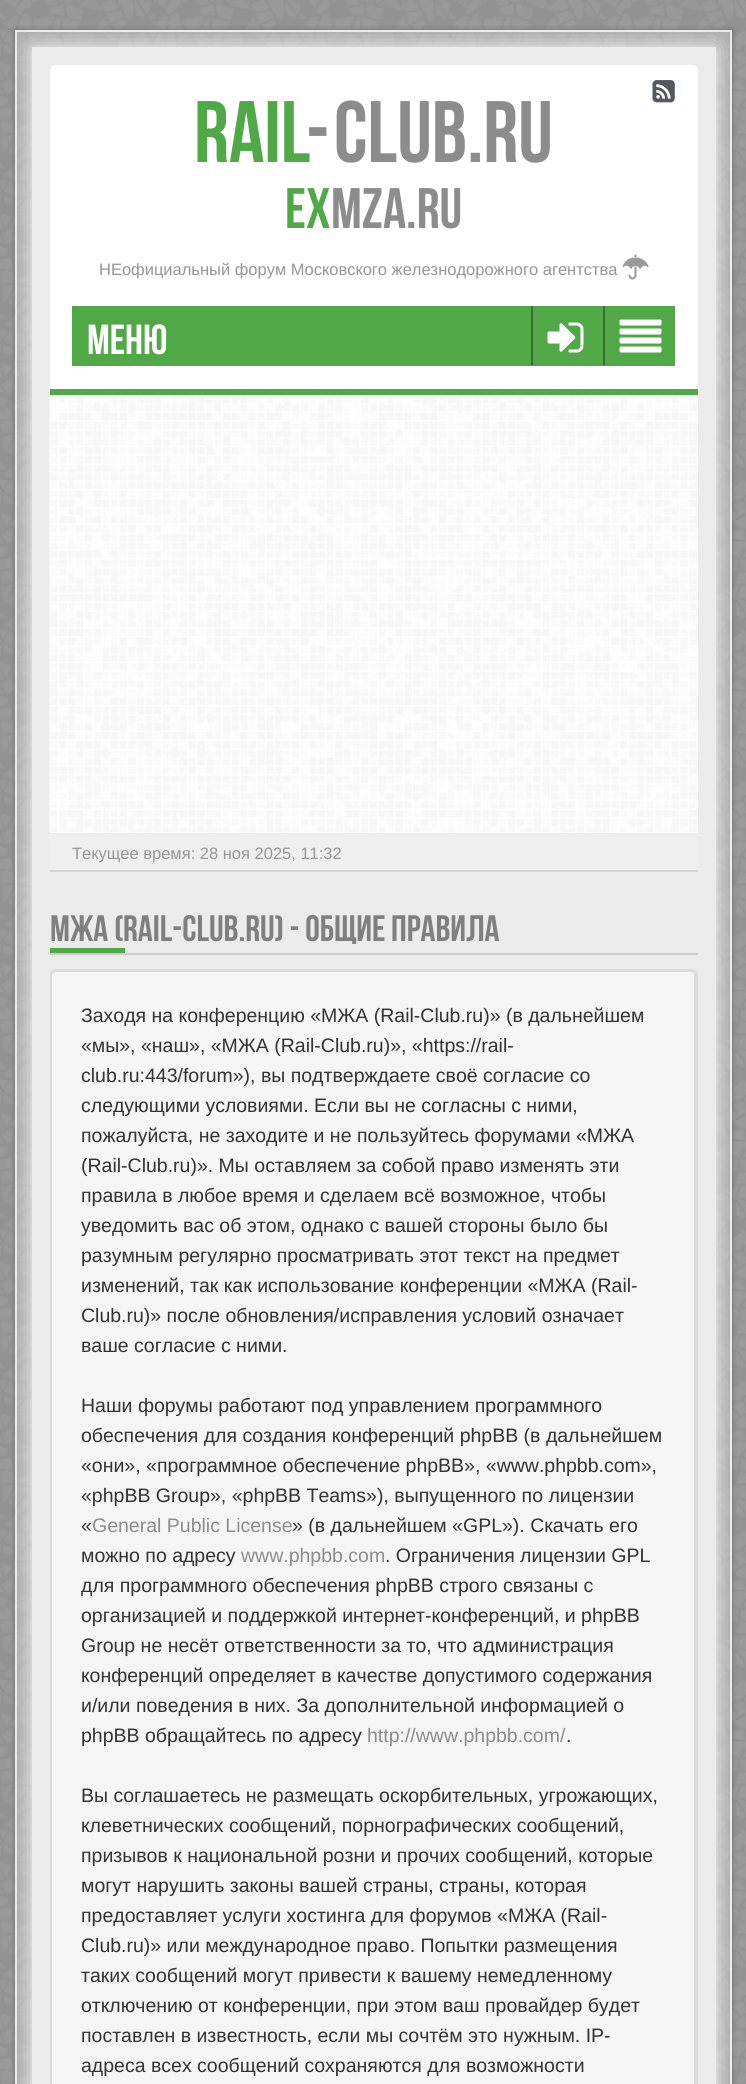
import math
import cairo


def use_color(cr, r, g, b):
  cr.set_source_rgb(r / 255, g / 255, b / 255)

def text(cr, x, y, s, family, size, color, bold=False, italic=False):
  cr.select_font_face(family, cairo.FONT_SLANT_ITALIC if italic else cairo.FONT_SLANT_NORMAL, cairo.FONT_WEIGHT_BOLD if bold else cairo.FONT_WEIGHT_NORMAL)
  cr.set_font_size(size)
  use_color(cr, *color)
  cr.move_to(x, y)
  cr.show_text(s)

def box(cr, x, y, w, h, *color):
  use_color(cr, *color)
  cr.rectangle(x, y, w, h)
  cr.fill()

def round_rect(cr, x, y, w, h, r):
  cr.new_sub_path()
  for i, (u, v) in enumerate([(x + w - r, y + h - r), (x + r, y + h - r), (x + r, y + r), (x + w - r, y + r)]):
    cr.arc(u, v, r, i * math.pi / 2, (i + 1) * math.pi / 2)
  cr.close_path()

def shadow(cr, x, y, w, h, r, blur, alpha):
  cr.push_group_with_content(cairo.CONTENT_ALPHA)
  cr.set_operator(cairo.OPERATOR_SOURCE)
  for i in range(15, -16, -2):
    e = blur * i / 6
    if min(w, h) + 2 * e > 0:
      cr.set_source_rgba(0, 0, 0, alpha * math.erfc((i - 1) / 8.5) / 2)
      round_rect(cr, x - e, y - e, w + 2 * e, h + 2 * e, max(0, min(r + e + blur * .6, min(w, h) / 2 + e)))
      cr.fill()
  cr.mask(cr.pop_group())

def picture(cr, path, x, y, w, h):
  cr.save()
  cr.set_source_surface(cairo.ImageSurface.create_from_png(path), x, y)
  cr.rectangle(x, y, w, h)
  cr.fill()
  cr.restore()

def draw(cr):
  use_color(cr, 153, 153, 153)
  cr.paint()
  box(cr, 15, 30, 717, 2054, 173, 173, 173)
  picture(cr, "img_01.png", 0, 0, 746, 2084)
  cr.save()
  cr.set_fill_rule(cairo.FILL_RULE_EVEN_ODD)
  cr.new_path()
  cr.move_to(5, 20)
  cr.line_to(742, 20)
  cr.line_to(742, 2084)
  cr.line_to(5, 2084)
  cr.close_path()
  cr.move_to(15, 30)
  cr.line_to(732, 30)
  cr.line_to(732, 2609)
  cr.line_to(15, 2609)
  cr.close_path()
  cr.clip()
  use_color(cr, 50, 50, 50)
  shadow(cr, 15, 30, 717, 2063, 0, 3, 0.5)
  cr.restore()
  cr.rectangle(16, 31, 715, 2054)
  cr.set_source_rgba(1, 1, 1, 0.75)
  cr.stroke()
  use_color(cr, 255, 255, 255)
  shadow(cr, 32, 47, 684, 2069, 0, 10.5, 1)
  box(cr, 32, 47, 684, 2037, 235, 235, 235)
  use_color(cr, 255, 255, 255)
  cr.new_path()
  cr.move_to(56, 65)
  cr.line_to(692, 65)
  cr.curve_to(695.5, 65, 698, 67.5, 698, 71)
  cr.line_to(698, 389)
  cr.line_to(50, 389)
  cr.line_to(50, 71)
  cr.curve_to(50, 67.5, 52.5, 65, 56, 65)
  cr.close_path()
  cr.fill()
  picture(cr, "img_02.png", 652, 80, 23, 23)
  picture(cr, "img_03.png", 622, 254, 27, 26)
  box(cr, 72, 306, 603, 60, 80, 168, 70)
  box(cr, 531, 306, 2, 59, 54, 114, 48)
  picture(cr, "img_04.png", 547, 322, 37, 31)
  box(cr, 603, 306, 2, 59, 54, 114, 48)
  picture(cr, "img_05.png", 619, 319, 43, 34)
  box(cr, 50, 395, 648, 438, 255, 255, 255)
  picture(cr, "img_06.png", 49, 388, 649, 445)
  box(cr, 50, 389, 648, 6, 80, 168, 70)
  use_color(cr, 212, 212, 212)
  cr.new_path()
  cr.move_to(50, 870)
  cr.line_to(50, 872)
  cr.line_to(698, 872)
  cr.line_to(698, 836)
  cr.line_to(698, 870)
  cr.close_path()
  cr.fill()
  box(cr, 50, 834, 648, 36, 239, 239, 239)
  box(cr, 50, 953, 648, 2, 204, 204, 204)
  box(cr, 50, 948, 75, 5, 80, 168, 70)
  use_color(cr, 245, 245, 245)
  cr.new_path()
  cr.move_to(56, 972)
  cr.line_to(692, 972)
  cr.curve_to(693, 972, 694, 973, 694, 975)
  cr.line_to(694, 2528)
  cr.curve_to(694, 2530, 693, 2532, 692, 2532)
  cr.line_to(56, 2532)
  cr.curve_to(54, 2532, 52, 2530, 52, 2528)
  cr.line_to(52, 975)
  cr.curve_to(52, 973, 54, 972, 56, 972)
  cr.close_path()
  cr.fill()
  use_color(cr, 219, 219, 219)
  cr.new_path()
  cr.move_to(56, 969)
  cr.curve_to(54, 969, 52, 970, 51, 971)
  cr.line_to(53, 973)
  cr.line_to(56, 972)
  cr.line_to(692, 972)
  cr.line_to(694, 973)
  cr.line_to(696, 971)
  cr.curve_to(695, 970, 693, 969, 692, 969)
  cr.close_path()
  cr.fill()
  cr.new_path()
  cr.move_to(698, 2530)
  cr.line_to(696, 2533)
  cr.line_to(693, 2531)
  cr.line_to(694, 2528)
  cr.line_to(694, 975)
  cr.line_to(694, 973)
  cr.line_to(696, 971)
  cr.line_to(698, 973)
  cr.close_path()
  cr.fill()
  cr.new_path()
  cr.move_to(51, 971)
  cr.curve_to(50, 972, 50, 974, 50, 975)
  cr.line_to(50, 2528)
  cr.curve_to(50, 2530, 51, 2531, 52, 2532)
  cr.line_to(54, 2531)
  cr.curve_to(53, 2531, 52, 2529, 52, 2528)
  cr.line_to(52, 975)
  cr.curve_to(52, 974, 52, 973, 53, 973)
  cr.close_path()
  cr.fill()
  text(cr, 194, 162, "Rail", "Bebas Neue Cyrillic", 87, (80, 168, 70))
  text(cr, 306, 162, "-", "Bebas Neue Cyrillic", 87, (140, 140, 140))
  text(cr, 334, 162, "Club.RU", "Bebas Neue Cyrillic", 87, (140, 140, 140))
  text(cr, 285, 228, "ex", "Bebas Neue Cyrillic", 57, (80, 168, 70))
  text(cr, 331, 228, "MZA.RU", "Bebas Neue Cyrillic", 57, (140, 140, 140))
  text(cr, 99, 275, "НЕофициальный форум Московского железнодорожного агентства", "Liberation Sans", 16.5, (151, 149, 149))
  text(cr, 87, 354, "МЕНЮ", "Bebas Neue Cyrillic", 42, (255, 255, 255))
  text(cr, 72, 859, "Текущее время: 28 ноя 2025, 11:32", "Liberation Sans", 16.5, (151, 149, 149))
  text(cr, 50, 941, "МЖА (RAIL-CLUB.RU) - ОБЩИЕ ПРАВИЛА", "Bebas Neue Cyrillic", 36.75, (127, 127, 127))
  text(cr, 81, 1022, "Заходя на конференцию «МЖА (Rail-Club.ru)» (в дальнейшем", "Liberation Sans", 19.5, (51, 51, 51))
  text(cr, 81, 1052, "«мы», «наш», «МЖА (Rail-Club.ru)», «https://rail-", "Liberation Sans", 19.5, (51, 51, 51))
  text(cr, 81, 1082, "club.ru:443/forum»), вы подтверждаете своё согласие со", "Liberation Sans", 19.5, (51, 51, 51))
  text(cr, 81, 1112, "следующими условиями. Если вы не согласны с ними,", "Liberation Sans", 19.5, (51, 51, 51))
  text(cr, 81, 1142, "пожалуйста, не заходите и не пользуйтесь форумами «МЖА", "Liberation Sans", 19.5, (51, 51, 51))
  text(cr, 81, 1172, "(Rail-Club.ru)». Мы оставляем за собой право изменять эти", "Liberation Sans", 19.5, (51, 51, 51))
  text(cr, 81, 1202, "правила в любое время и сделаем всё возможное, чтобы", "Liberation Sans", 19.5, (51, 51, 51))
  text(cr, 81, 1232, "уведомить вас об этом, однако с вашей стороны было бы", "Liberation Sans", 19.5, (51, 51, 51))
  text(cr, 81, 1262, "разумным регулярно просматривать этот текст на предмет", "Liberation Sans", 19.5, (51, 51, 51))
  text(cr, 81, 1292, "изменений, так как использование конференции «МЖА (Rail-", "Liberation Sans", 19.5, (51, 51, 51))
  text(cr, 81, 1322, "Club.ru)» после обновления/исправления условий означает", "Liberation Sans", 19.5, (51, 51, 51))
  text(cr, 81, 1352, "ваше согласие с ними.", "Liberation Sans", 19.5, (51, 51, 51))
  text(cr, 81, 1412, "Наши форумы работают под управлением программного", "Liberation Sans", 19.5, (51, 51, 51))
  text(cr, 81, 1442, "обеспечения для создания конференций phpBB (в дальнейшем", "Liberation Sans", 19.5, (51, 51, 51))
  text(cr, 81, 1472, "«они», «программное обеспечение phpBB», «www.phpbb.com»,", "Liberation Sans", 19.5, (51, 51, 51))
  text(cr, 81, 1502, "«phpBB Group», «phpBB Teams»), выпущенного по лицензии", "Liberation Sans", 19.5, (51, 51, 51))
  text(cr, 81, 1532, "«", "Liberation Sans", 19.5, (51, 51, 51))
  text(cr, 92, 1532, "General Public License", "Liberation Sans", 19.5, (140, 140, 140))
  text(cr, 292, 1532, "» (в дальнейшем «GPL»). Скачать его", "Liberation Sans", 19.5, (51, 51, 51))
  text(cr, 81, 1562, "можно по адресу", "Liberation Sans", 19.5, (51, 51, 51))
  text(cr, 241, 1562, "www.phpbb.com", "Liberation Sans", 19.5, (140, 140, 140))
  text(cr, 385, 1562, ". Ограничения лицензии GPL", "Liberation Sans", 19.5, (51, 51, 51))
  text(cr, 81, 1592, "для программного обеспечения phpBB строго связаны с", "Liberation Sans", 19.5, (51, 51, 51))
  text(cr, 81, 1622, "организацией и поддержкой интернет-конференций, и phpBB", "Liberation Sans", 19.5, (51, 51, 51))
  text(cr, 81, 1652, "Group не несёт ответственности за то, что администрация", "Liberation Sans", 19.5, (51, 51, 51))
  text(cr, 81, 1682, "конференций определяет в качестве допустимого содержания", "Liberation Sans", 19.5, (51, 51, 51))
  text(cr, 81, 1712, "и/или поведения в них. За дополнительной информацией о", "Liberation Sans", 19.5, (51, 51, 51))
  text(cr, 81, 1742, "phpBB обращайтесь по адресу", "Liberation Sans", 19.5, (51, 51, 51))
  text(cr, 367, 1742, "http://www.phpbb.com/", "Liberation Sans", 19.5, (140, 140, 140))
  text(cr, 566, 1742, ".", "Liberation Sans", 19.5, (51, 51, 51))
  text(cr, 81, 1802, "Вы соглашаетесь не размещать оскорбительных, угрожающих,", "Liberation Sans", 19.5, (51, 51, 51))
  text(cr, 81, 1832, "клеветнических сообщений, порнографических сообщений,", "Liberation Sans", 19.5, (51, 51, 51))
  text(cr, 81, 1862, "призывов к национальной розни и прочих сообщений, которые", "Liberation Sans", 19.5, (51, 51, 51))
  text(cr, 81, 1892, "могут нарушить законы вашей страны, страны, которая", "Liberation Sans", 19.5, (51, 51, 51))
  text(cr, 81, 1922, "предоставляет услуги хостинга для форумов «МЖА (Rail-", "Liberation Sans", 19.5, (51, 51, 51))
  text(cr, 81, 1952, "Club.ru)» или международное право. Попытки размещения", "Liberation Sans", 19.5, (51, 51, 51))
  text(cr, 81, 1982, "таких сообщений могут привести к вашему немедленному", "Liberation Sans", 19.5, (51, 51, 51))
  text(cr, 81, 2012, "отключению от конференции, при этом ваш провайдер будет", "Liberation Sans", 19.5, (51, 51, 51))
  text(cr, 81, 2042, "поставлен в известность, если мы сочтём это нужным. IP-", "Liberation Sans", 19.5, (51, 51, 51))
  text(cr, 81, 2072, "адреса всех сообщений сохраняются для возможности", "Liberation Sans", 19.5, (51, 51, 51))


surface = cairo.ImageSurface(cairo.FORMAT_RGB24, 746, 2084)
cr = cairo.Context(surface)
options = cairo.FontOptions()
options.set_hint_metrics(cairo.HINT_METRICS_OFF)
options.set_hint_style(cairo.HINT_STYLE_NONE)
cr.set_font_options(options)
cr.set_miter_limit(4)
draw(cr)
surface.write_to_png("out.png")
